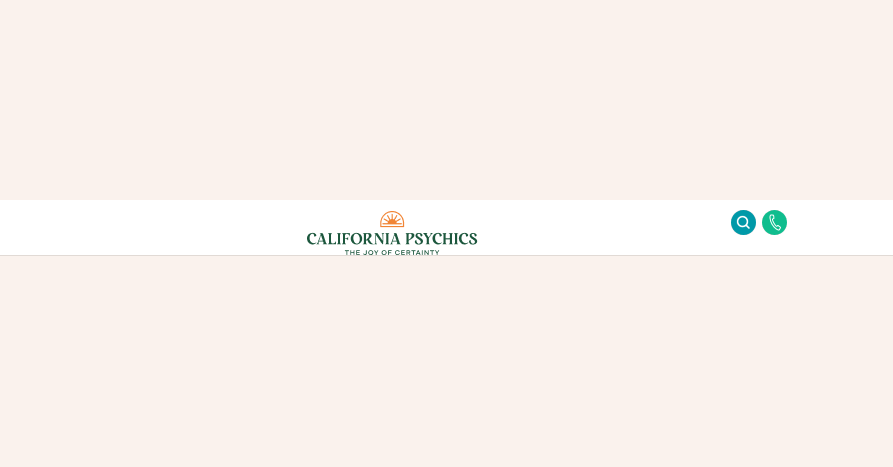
import math
import cairo


def use_color(cr, r, g, b):
  cr.set_source_rgb(r / 255, g / 255, b / 255)

def box(cr, x, y, w, h, *color):
  use_color(cr, *color)
  cr.rectangle(x, y, w, h)
  cr.fill()

def picture(cr, path, x, y, w, h):
  cr.save()
  cr.set_source_surface(cairo.ImageSurface.create_from_png(path), x, y)
  cr.rectangle(x, y, w, h)
  cr.fill()
  cr.restore()

def draw(cr):
  use_color(cr, 250, 242, 237)
  cr.paint()
  box(cr, 0, 255, 893, 1, 225, 218, 213)
  box(cr, 0, 200, 893, 55, 255, 255, 255)
  picture(cr, "img_01.png", 307, 211, 171, 44)
  picture(cr, "img_02.png", 731, 210, 25, 25)
  picture(cr, "img_03.png", 762, 210, 25, 25)


surface = cairo.ImageSurface(cairo.FORMAT_RGB24, 893, 467)
cr = cairo.Context(surface)
options = cairo.FontOptions()
options.set_hint_metrics(cairo.HINT_METRICS_OFF)
options.set_hint_style(cairo.HINT_STYLE_NONE)
cr.set_font_options(options)
cr.set_miter_limit(4)
draw(cr)
surface.write_to_png("out.png")
